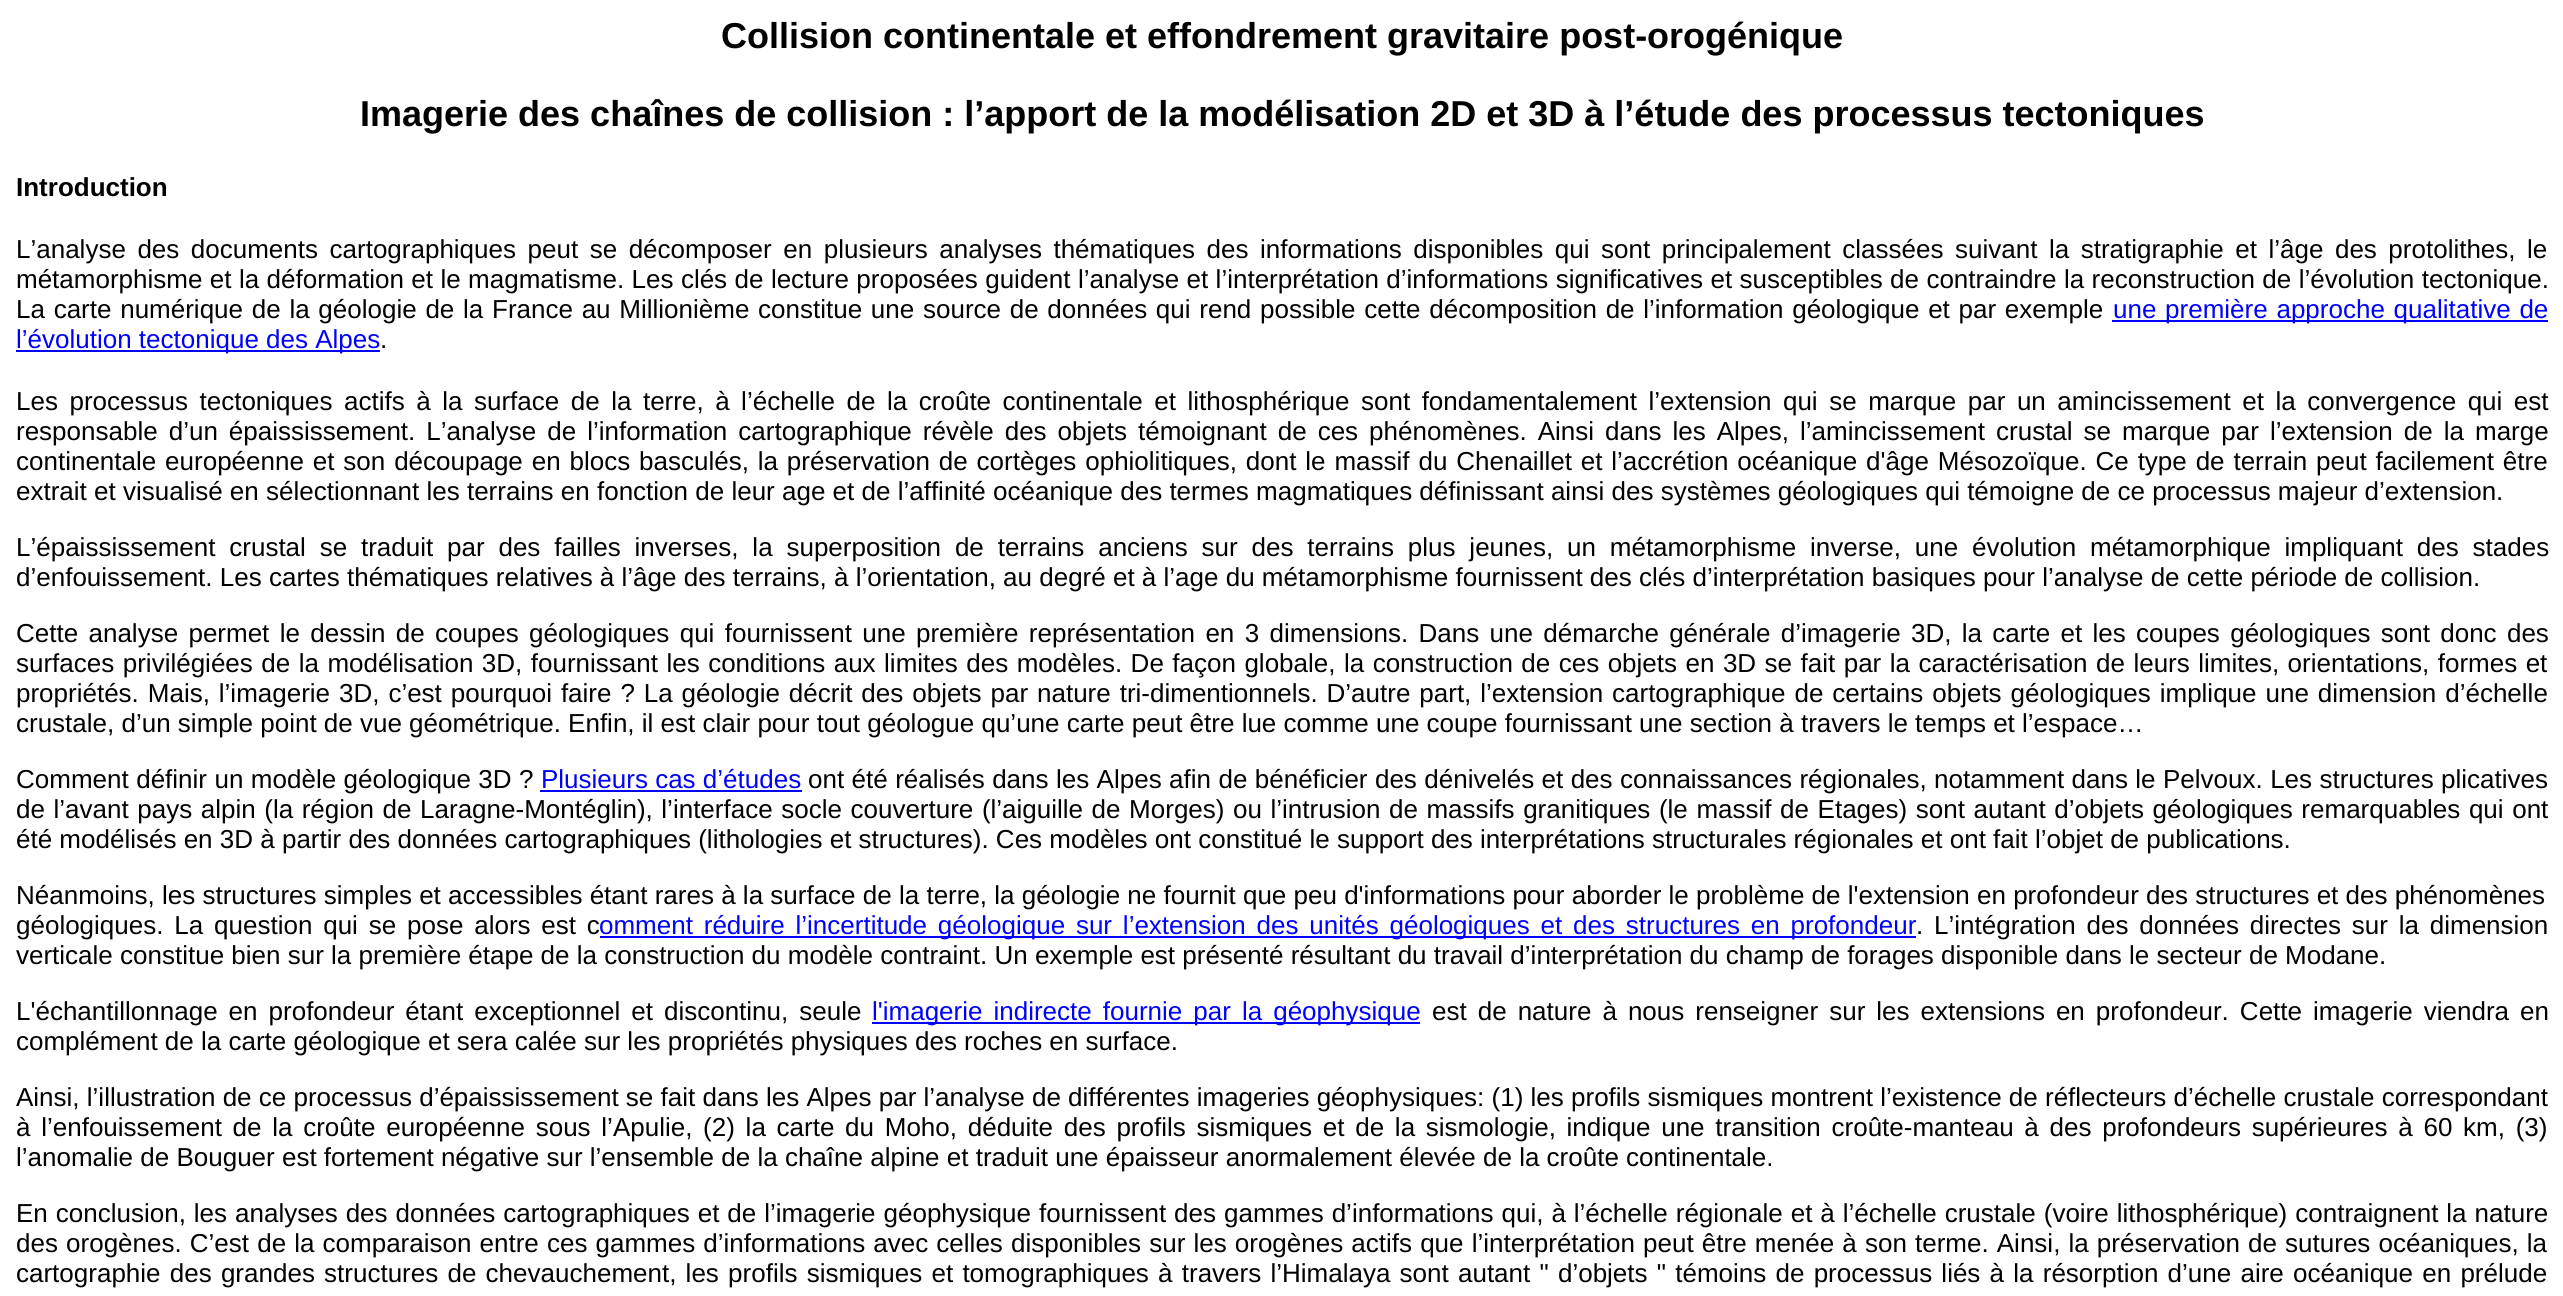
import math
import cairo


def use_color(cr, r, g, b):
  cr.set_source_rgb(r / 255, g / 255, b / 255)

def text(cr, x, y, s, family, size, color, bold=False, italic=False):
  cr.select_font_face(family, cairo.FONT_SLANT_ITALIC if italic else cairo.FONT_SLANT_NORMAL, cairo.FONT_WEIGHT_BOLD if bold else cairo.FONT_WEIGHT_NORMAL)
  cr.set_font_size(size)
  use_color(cr, *color)
  cr.move_to(x, y)
  cr.show_text(s)

def spaced_text(cr, x, y, s, letter, word):
  cr.move_to(x, y)
  for ch in s:
    cr.show_text(ch)
    cr.rel_move_to(letter + word * (ch == ' '), 0)

def box(cr, x, y, w, h, *color):
  use_color(cr, *color)
  cr.rectangle(x, y, w, h)
  cr.fill()

def draw(cr):
  use_color(cr, 255, 255, 255)
  cr.paint()
  box(cr, 2112, 320, 436, 2, 0, 0, 255)
  box(cr, 16, 350, 364, 2, 0, 0, 255)
  box(cr, 540, 790, 262, 2, 0, 0, 255)
  box(cr, 600, 936, 1316, 2, 0, 0, 255)
  box(cr, 872, 1022, 548, 2, 0, 0, 255)
  text(cr, 721, 48, "Collision continentale et effondrement gravitaire post-orogénique", "Liberation Sans", 36, (0, 0, 0), bold=True)
  text(cr, 360, 126, "Imagerie des chaînes de collision : l’apport de la modélisation 2D et 3D à l’étude des processus tectoniques", "Liberation Sans", 36, (0, 0, 0), bold=True)
  text(cr, 16, 196, "Introduction", "Liberation Sans", 26, (0, 0, 0), bold=True)
  cr.select_font_face("Liberation Sans")
  spaced_text(cr, 16, 258, "L’analyse des documents cartographiques peut se décomposer en plusieurs analyses thématiques des informations disponibles qui sont principalement classées suivant la stratigraphie et l’âge des protolithes, le", 0, 4.3)
  spaced_text(cr, 16, 288, "métamorphisme et la déformation et le magmatisme. Les clés de lecture proposées guident l’analyse et l’interprétation d’informations significatives et susceptibles de contraindre la reconstruction de l’évolution tectonique.", 0, 0.2)
  spaced_text(cr, 16, 318, "La carte numérique de la géologie de la France au Millionième constitue une source de données qui rend possible cette décomposition de l’information géologique et par exemple", 0, 1.5)
  use_color(cr, 0, 0, 255)
  spaced_text(cr, 2113, 318, "une première approche qualitative de", 0, 1.5)
  text(cr, 16, 348, "l’évolution tectonique des Alpes", "Liberation Sans", 26, (0, 0, 255))
  text(cr, 380, 348, ".", "Liberation Sans", 26, (0, 0, 0))
  spaced_text(cr, 16, 410, "Les processus tectoniques actifs à la surface de la terre, à l’échelle de la croûte continentale et lithosphérique sont fondamentalement l’extension qui se marque par un amincissement et la convergence qui est", 0, 4.3)
  spaced_text(cr, 16, 440, "responsable d’un épaississement. L’analyse de l’information cartographique révèle des objets témoignant de ces phénomènes. Ainsi dans les Alpes, l’amincissement crustal se marque par l’extension de la marge", 0, 3.8)
  spaced_text(cr, 16, 470, "continentale européenne et son découpage en blocs basculés, la préservation de cortèges ophiolitiques, dont le massif du Chenaillet et l’accrétion océanique d'âge Mésozoïque. Ce type de terrain peut facilement être", 0, 1.65)
  text(cr, 16, 500, "extrait et visualisé en sélectionnant les terrains en fonction de leur age et de l’affinité océanique des termes magmatiques définissant ainsi des systèmes géologiques qui témoigne de ce processus majeur d’extension.", "Liberation Sans", 26, (0, 0, 0))
  spaced_text(cr, 16, 556, "L’épaississement crustal se traduit par des failles inverses, la superposition de terrains anciens sur des terrains plus jeunes, un métamorphisme inverse, une évolution métamorphique impliquant des stades", 0, 6.6)
  text(cr, 16, 586, "d’enfouissement. Les cartes thématiques relatives à l’âge des terrains, à l’orientation, au degré et à l’age du métamorphisme fournissent des clés d’interprétation basiques pour l’analyse de cette période de collision.", "Liberation Sans", 26, (0, 0, 0))
  spaced_text(cr, 16, 642, "Cette analyse permet le dessin de coupes géologiques qui fournissent une première représentation en 3 dimensions. Dans une démarche générale d’imagerie 3D, la carte et les coupes géologiques sont donc des", 0, 3.1)
  spaced_text(cr, 16, 672, "surfaces privilégiées de la modélisation 3D, fournissant les conditions aux limites des modèles. De façon globale, la construction de ces objets en 3D se fait par la caractérisation de leurs limites, orientations, formes et", 0, 1.25)
  spaced_text(cr, 16, 702, "propriétés. Mais, l’imagerie 3D, c’est pourquoi faire ? La géologie décrit des objets par nature tri-dimentionnels. D’autre part, l’extension cartographique de certains objets géologiques implique une dimension d’échelle", 0, 1.7)
  text(cr, 16, 732, "crustale, d’un simple point de vue géométrique. Enfin, il est clair pour tout géologue qu’une carte peut être lue comme une coupe fournissant une section à travers le temps et l’espace…", "Liberation Sans", 26, (0, 0, 0))
  spaced_text(cr, 16, 788, "Comment définir un modèle géologique 3D ?", 0, 0.25)
  text(cr, 541, 788, "Plusieurs cas d’études", "Liberation Sans", 26, (0, 0, 255))
  use_color(cr, 0, 0, 0)
  spaced_text(cr, 808, 788, "ont été réalisés dans les Alpes afin de bénéficier des dénivelés et des connaissances régionales, notamment dans le Pelvoux. Les structures plicatives", 0, 0.2)
  spaced_text(cr, 16, 818, "de l’avant pays alpin (la région de Laragne-Montéglin), l’interface socle couverture (l’aiguille de Morges) ou l’intrusion de massifs granitiques (le massif de Etages) sont autant d’objets géologiques remarquables qui ont", 0, 1.35)
  text(cr, 16, 848, "été modélisés en 3D à partir des données cartographiques (lithologies et structures). Ces modèles ont constitué le support des interprétations structurales régionales et ont fait l’objet de publications.", "Liberation Sans", 26, (0, 0, 0))
  text(cr, 16, 904, "Néanmoins, les structures simples et accessibles étant rares à la surface de la terre, la géologie ne fournit que peu d'informations pour aborder le problème de l'extension en profondeur des structures et des phénomènes", "Liberation Sans", 26, (0, 0, 0))
  spaced_text(cr, 16, 934, "géologiques. La question qui se pose alors est c", 0, 3.6)
  use_color(cr, 0, 0, 255)
  spaced_text(cr, 599, 934, "omment réduire l’incertitude géologique sur l’extension des unités géologiques et des structures en profondeur", 0, 3.6)
  use_color(cr, 0, 0, 0)
  spaced_text(cr, 1916, 934, ". L’intégration des données directes sur la dimension", 0, 3.6)
  text(cr, 16, 964, "verticale constitue bien sur la première étape de la construction du modèle contraint. Un exemple est présenté résultant du travail d’interprétation du champ de forages disponible dans le secteur de Modane.", "Liberation Sans", 26, (0, 0, 0))
  spaced_text(cr, 16, 1020, "L'échantillonnage en profondeur étant exceptionnel et discontinu, seule", 0, 3.8)
  use_color(cr, 0, 0, 255)
  spaced_text(cr, 872, 1020, "l'imagerie indirecte fournie par la géophysique", 0, 3.8)
  use_color(cr, 0, 0, 0)
  spaced_text(cr, 1432, 1020, "est de nature à nous renseigner sur les extensions en profondeur. Cette imagerie viendra en", 0, 3.8)
  text(cr, 16, 1050, "complément de la carte géologique et sera calée sur les propriétés physiques des roches en surface.", "Liberation Sans", 26, (0, 0, 0))
  text(cr, 16, 1106, "Ainsi, l’illustration de ce processus d’épaississement se fait dans les Alpes par l’analyse de différentes imageries géophysiques: (1) les profils sismiques montrent l’existence de réflecteurs d’échelle crustale correspondant", "Liberation Sans", 26, (0, 0, 0))
  spaced_text(cr, 16, 1136, "à l’enfouissement de la croûte européenne sous l’Apulie, (2) la carte du Moho, déduite des profils sismiques et de la sismologie, indique une transition croûte-manteau à des profondeurs supérieures à 60 km, (3)", 0, 3.5)
  text(cr, 16, 1166, "l’anomalie de Bouguer est fortement négative sur l’ensemble de la chaîne alpine et traduit une épaisseur anormalement élevée de la croûte continentale.", "Liberation Sans", 26, (0, 0, 0))
  spaced_text(cr, 16, 1222, "En conclusion, les analyses des données cartographiques et de l’imagerie géophysique fournissent des gammes d’informations qui, à l’échelle régionale et à l’échelle crustale (voire lithosphérique) contraignent la nature", 0, 0.75)
  spaced_text(cr, 16, 1252, "des orogènes. C’est de la comparaison entre ces gammes d’informations avec celles disponibles sur les orogènes actifs que l’interprétation peut être menée à son terme. Ainsi, la préservation de sutures océaniques, la", 0, 0.9)
  spaced_text(cr, 16, 1282, "cartographie des grandes structures de chevauchement, les profils sismiques et tomographiques à travers l’Himalaya sont autant \" d’objets \" témoins de processus liés à la résorption d’une aire océanique en prélude", 0, 2)


surface = cairo.ImageSurface(cairo.FORMAT_RGB24, 2563, 1296)
cr = cairo.Context(surface)
options = cairo.FontOptions()
options.set_hint_metrics(cairo.HINT_METRICS_OFF)
options.set_hint_style(cairo.HINT_STYLE_NONE)
cr.set_font_options(options)
cr.set_miter_limit(4)
draw(cr)
surface.write_to_png("out.png")
